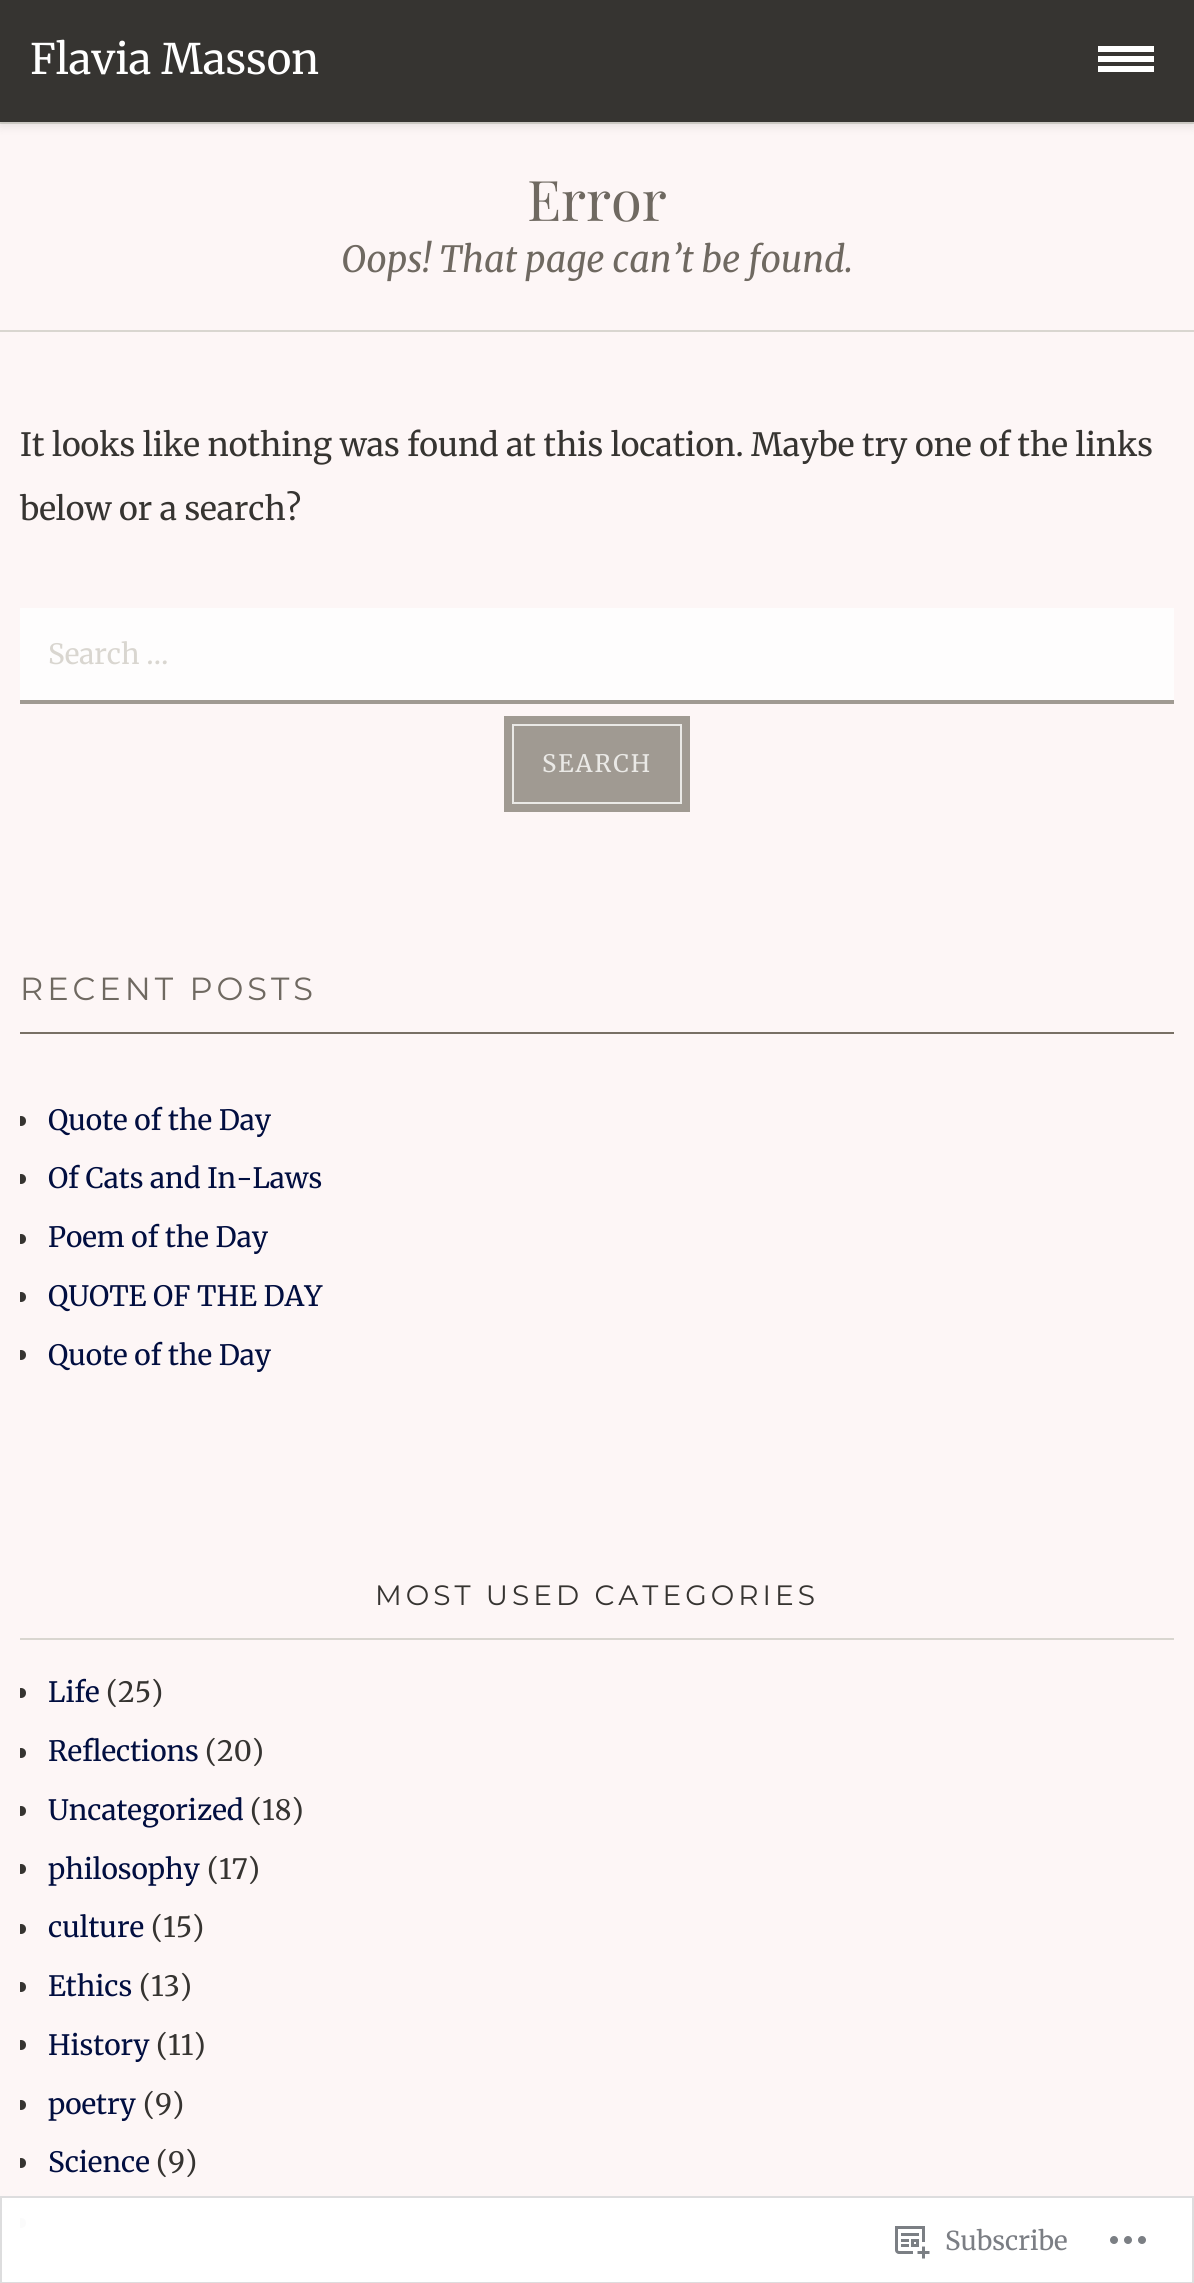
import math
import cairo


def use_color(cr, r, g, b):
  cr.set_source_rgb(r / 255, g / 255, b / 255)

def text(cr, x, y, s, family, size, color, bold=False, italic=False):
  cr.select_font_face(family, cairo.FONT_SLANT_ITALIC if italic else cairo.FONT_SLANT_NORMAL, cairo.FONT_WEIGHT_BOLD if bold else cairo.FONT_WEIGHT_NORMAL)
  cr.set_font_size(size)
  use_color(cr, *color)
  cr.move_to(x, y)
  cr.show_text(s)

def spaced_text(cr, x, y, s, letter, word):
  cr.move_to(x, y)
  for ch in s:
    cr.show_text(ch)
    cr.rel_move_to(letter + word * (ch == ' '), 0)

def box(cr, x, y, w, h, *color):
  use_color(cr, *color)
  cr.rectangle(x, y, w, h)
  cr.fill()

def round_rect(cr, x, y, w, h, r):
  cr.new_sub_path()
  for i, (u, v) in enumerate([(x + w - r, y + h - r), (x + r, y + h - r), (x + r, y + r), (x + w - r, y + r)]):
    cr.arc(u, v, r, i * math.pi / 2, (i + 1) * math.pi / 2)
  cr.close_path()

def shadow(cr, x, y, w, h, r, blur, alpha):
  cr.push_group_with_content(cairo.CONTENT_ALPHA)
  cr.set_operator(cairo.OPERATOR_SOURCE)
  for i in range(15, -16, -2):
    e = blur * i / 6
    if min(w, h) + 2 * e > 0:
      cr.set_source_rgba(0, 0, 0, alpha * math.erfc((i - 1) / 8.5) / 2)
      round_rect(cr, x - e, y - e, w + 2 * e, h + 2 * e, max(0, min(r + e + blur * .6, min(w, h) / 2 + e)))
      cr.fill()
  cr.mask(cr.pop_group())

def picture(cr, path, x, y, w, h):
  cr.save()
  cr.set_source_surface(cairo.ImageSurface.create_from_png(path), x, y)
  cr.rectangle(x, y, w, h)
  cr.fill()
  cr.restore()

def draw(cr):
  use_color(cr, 253, 246, 246)
  cr.paint()
  box(cr, 2, 2198, 1190, 84, 255, 255, 255)
  box(cr, 0, 122, 1194, 2, 217, 214, 208)
  use_color(cr, 0, 0, 0)
  shadow(cr, 0, 4, 1194, 122, 0, 5, 0.1)
  box(cr, 0, 0, 1194, 122, 54, 52, 49)
  box(cr, 1098, 46, 56, 6, 255, 255, 255)
  box(cr, 1098, 56, 56, 6, 255, 255, 255)
  box(cr, 1098, 66, 56, 6, 255, 255, 255)
  box(cr, 0, 330, 1194, 2, 217, 214, 208)
  box(cr, 20, 608, 1154, 92, 254, 253, 253)
  box(cr, 20, 700, 1154, 4, 160, 154, 146)
  cr.rectangle(513, 725, 168, 78)
  cr.fill_preserve()
  use_color(cr, 234, 233, 230)
  cr.stroke()
  cr.rectangle(508, 720, 178, 88)
  use_color(cr, 160, 154, 146)
  cr.set_line_width(8)
  cr.stroke()
  box(cr, 20, 1032, 1154, 2, 120, 112, 101)
  cr.save()
  cr.rectangle(20, 836, 1154, 584)
  cr.clip()
  use_color(cr, 54, 52, 49)
  cr.arc(21, 1121, 5, 0, 2 * math.pi)
  cr.fill()
  cr.arc(21, 1179, 5, 0, 2 * math.pi)
  cr.fill()
  cr.arc(21, 1239, 5, 0, 2 * math.pi)
  cr.fill()
  cr.arc(21, 1297, 5, 0, 2 * math.pi)
  cr.fill()
  cr.arc(21, 1355, 5, 0, 2 * math.pi)
  cr.fill()
  cr.restore()
  box(cr, 20, 1638, 1154, 2, 217, 214, 208)
  cr.save()
  cr.rectangle(20, 1462, 1154, 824)
  cr.clip()
  use_color(cr, 54, 52, 49)
  cr.arc(21, 1693, 5, 0, 2 * math.pi)
  cr.fill()
  cr.arc(21, 1753, 5, 0, 2 * math.pi)
  cr.fill()
  cr.arc(21, 1811, 5, 0, 2 * math.pi)
  cr.fill()
  cr.arc(21, 1869, 5, 0, 2 * math.pi)
  cr.fill()
  cr.arc(21, 1929, 5, 0, 2 * math.pi)
  cr.fill()
  cr.arc(21, 1987, 5, 0, 2 * math.pi)
  cr.fill()
  cr.arc(21, 2045, 5, 0, 2 * math.pi)
  cr.fill()
  cr.arc(21, 2105, 5, 0, 2 * math.pi)
  cr.fill()
  cr.arc(21, 2163, 5, 0, 2 * math.pi)
  cr.fill()
  use_color(cr, 251, 251, 251)
  cr.arc(21, 2223, 5, 0, 2 * math.pi)
  cr.fill()
  cr.restore()
  cr.rectangle(1, 2197, 1192, 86)
  use_color(cr, 221, 221, 222)
  cr.set_line_width(2)
  cr.stroke()
  picture(cr, "img_01.png", 895, 2226, 35, 33)
  picture(cr, "img_02.png", 1110, 2236, 36, 8)
  text(cr, 30, 74, "Flavia Masson", "Merriweather", 42, (255, 255, 255))
  text(cr, 527, 221, "Error", "Playfair Display", 56, (111, 105, 97))
  text(cr, 341, 272, "Oops! That page can’t be found.", "Merriweather", 36, (111, 105, 97), italic=True)
  text(cr, 20, 456, "It looks like nothing was found at this location. Maybe try one of the links", "Merriweather", 32, (54, 52, 49))
  text(cr, 20, 520, "below or a search?", "Merriweather", 32, (54, 52, 49))
  text(cr, 48, 664, "Search …", "Merriweather", 28, (217, 214, 208))
  cr.set_font_size(24)
  use_color(cr, 234, 233, 230)
  spaced_text(cr, 542, 772, "SEARCH", 2, 0)
  cr.select_font_face("Montserrat Thin")
  cr.set_font_size(32)
  use_color(cr, 111, 105, 97)
  spaced_text(cr, 20, 1000, "RECENT POSTS", 4, 0)
  text(cr, 48, 1130, "Quote of the Day", "Merriweather", 28, (1, 14, 64))
  text(cr, 48, 1188, "Of Cats and In-Laws", "Merriweather", 28, (1, 14, 64))
  text(cr, 48, 1247, "Poem of the Day", "Merriweather", 28, (1, 14, 64))
  text(cr, 48, 1306, "QUOTE OF THE DAY", "Merriweather", 28, (1, 14, 64))
  text(cr, 48, 1365, "Quote of the Day", "Merriweather", 28, (1, 14, 64))
  cr.select_font_face("Montserrat Thin")
  use_color(cr, 54, 52, 49)
  spaced_text(cr, 375, 1605, "MOST USED CATEGORIES", 4, 0)
  text(cr, 48, 1702, "Life", "Merriweather", 28, (1, 14, 64))
  text(cr, 106, 1702, "(25)", "Merriweather", 28, (54, 52, 49))
  text(cr, 48, 1761, "Reflections", "Merriweather", 28, (1, 14, 64))
  text(cr, 205, 1761, "(20)", "Merriweather", 28, (54, 52, 49))
  text(cr, 48, 1820, "Uncategorized", "Merriweather", 28, (1, 14, 64))
  text(cr, 250, 1820, "(18)", "Merriweather", 28, (54, 52, 49))
  text(cr, 48, 1879, "philosophy", "Merriweather", 28, (1, 14, 64))
  text(cr, 207, 1879, "(17)", "Merriweather", 28, (54, 52, 49))
  text(cr, 48, 1937, "culture", "Merriweather", 28, (1, 14, 64))
  text(cr, 151, 1937, "(15)", "Merriweather", 28, (54, 52, 49))
  text(cr, 48, 1996, "Ethics", "Merriweather", 28, (1, 14, 64))
  text(cr, 139, 1996, "(13)", "Merriweather", 28, (54, 52, 49))
  text(cr, 48, 2055, "History", "Merriweather", 28, (1, 14, 64))
  text(cr, 156, 2055, "(11)", "Merriweather", 28, (54, 52, 49))
  text(cr, 48, 2114, "poetry", "Merriweather", 28, (1, 14, 64))
  text(cr, 143, 2114, "(9)", "Merriweather", 28, (54, 52, 49))
  text(cr, 48, 2172, "Science", "Merriweather", 28, (1, 14, 64))
  text(cr, 156, 2172, "(9)", "Merriweather", 28, (54, 52, 49))
  text(cr, 945, 2250, "Subscribe", "Merriweather", 26, (123, 126, 132))


surface = cairo.ImageSurface(cairo.FORMAT_RGB24, 1194, 2283)
cr = cairo.Context(surface)
options = cairo.FontOptions()
options.set_hint_metrics(cairo.HINT_METRICS_OFF)
options.set_hint_style(cairo.HINT_STYLE_NONE)
cr.set_font_options(options)
cr.set_miter_limit(4)
draw(cr)
surface.write_to_png("out.png")
